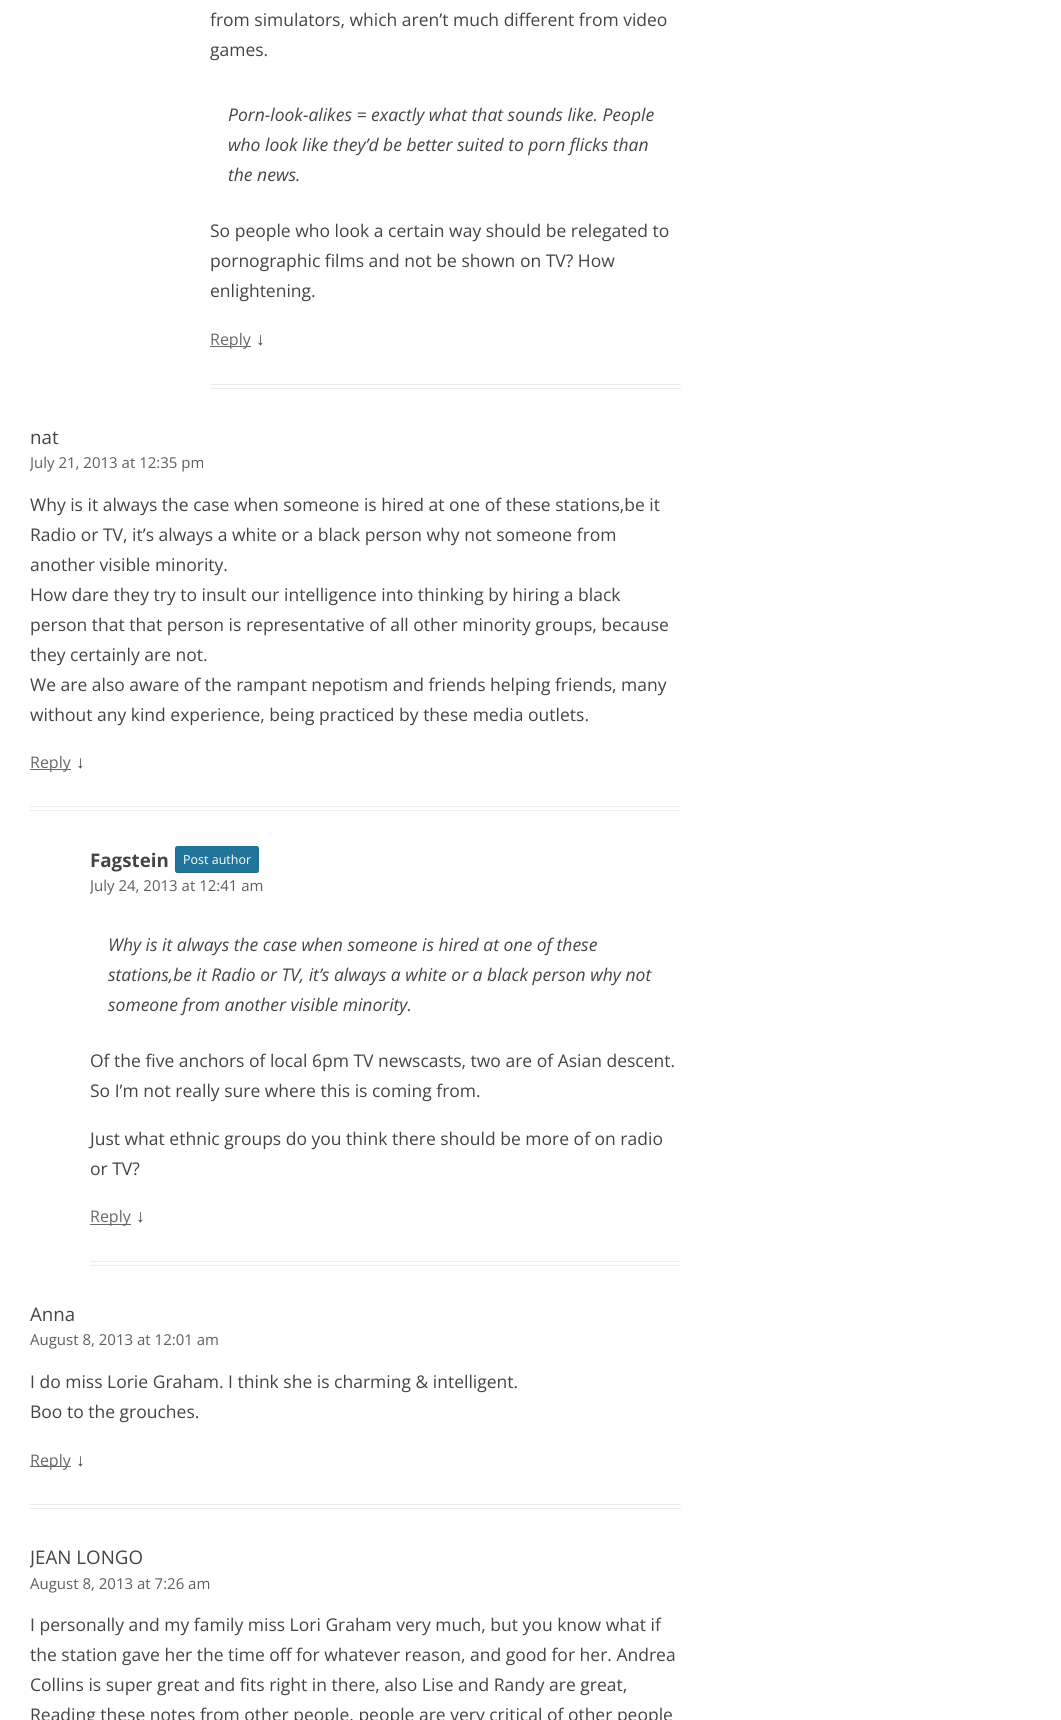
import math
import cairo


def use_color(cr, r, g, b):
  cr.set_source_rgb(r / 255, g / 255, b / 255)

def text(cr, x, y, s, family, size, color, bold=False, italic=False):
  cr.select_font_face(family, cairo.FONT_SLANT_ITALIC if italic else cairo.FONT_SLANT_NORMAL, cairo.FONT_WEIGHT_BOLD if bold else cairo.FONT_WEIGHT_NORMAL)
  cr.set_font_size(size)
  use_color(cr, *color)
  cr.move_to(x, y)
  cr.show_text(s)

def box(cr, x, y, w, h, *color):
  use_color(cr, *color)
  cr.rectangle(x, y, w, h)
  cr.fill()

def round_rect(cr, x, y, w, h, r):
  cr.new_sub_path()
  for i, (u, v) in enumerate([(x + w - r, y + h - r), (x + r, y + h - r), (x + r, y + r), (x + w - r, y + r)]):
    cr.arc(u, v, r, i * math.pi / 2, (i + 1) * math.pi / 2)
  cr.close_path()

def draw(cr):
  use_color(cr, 255, 255, 255)
  cr.paint()
  box(cr, 210, 384, 471, 1, 237, 237, 237)
  box(cr, 210, 388, 471, 1, 237, 237, 237)
  box(cr, 210, 346, 41, 1, 104, 104, 104)
  box(cr, 30, 806, 651, 1, 237, 237, 237)
  box(cr, 30, 810, 651, 1, 237, 237, 237)
  box(cr, 30, 769, 41, 1, 104, 104, 104)
  box(cr, 90, 1261, 591, 1, 237, 237, 237)
  box(cr, 90, 1265, 591, 1, 237, 237, 237)
  use_color(cr, 33, 117, 155)
  round_rect(cr, 175.5, 846.5, 83, 26, 2)
  cr.fill_preserve()
  use_color(cr, 31, 111, 147)
  cr.set_line_width(1)
  cr.stroke()
  box(cr, 90, 1224, 41, 1, 104, 104, 104)
  box(cr, 30, 1504, 651, 1, 237, 237, 237)
  box(cr, 30, 1508, 651, 1, 237, 237, 237)
  box(cr, 30, 1466, 41, 1, 104, 104, 104)
  text(cr, 210, 26, "from simulators, which aren’t much different from video", "Open Sans", 17.5, (68, 68, 68))
  text(cr, 210, 56, "games.", "Open Sans", 17.5, (68, 68, 68))
  text(cr, 228, 121, "Porn-look-alikes = exactly what that sounds like. People", "Open Sans", 17.5, (68, 68, 68), italic=True)
  text(cr, 228, 151, "who look like they’d be better suited to porn flicks than", "Open Sans", 17.5, (68, 68, 68), italic=True)
  text(cr, 228, 181, "the news.", "Open Sans", 17.5, (68, 68, 68), italic=True)
  text(cr, 210, 237, "So people who look a certain way should be relegated to", "Open Sans", 17.5, (68, 68, 68))
  text(cr, 210, 267, "pornographic films and not be shown on TV? How", "Open Sans", 17.5, (68, 68, 68))
  text(cr, 210, 297, "enlightening.", "Open Sans", 17.5, (68, 68, 68))
  text(cr, 210, 345, "Reply", "Open Sans", 16, (104, 104, 104))
  text(cr, 256, 345, "↓", "Liberation Sans", 17.5, (68, 68, 68))
  text(cr, 30, 444, "nat", "Open Sans", 18.75, (68, 68, 68))
  cr.save()
  cr.rectangle(30, 424, 651, 52)
  cr.clip()
  text(cr, 30, 468, "July 21, 2013 at 12:35 pm", "Open Sans", 15, (94, 94, 94))
  cr.restore()
  text(cr, 30, 511, "Why is it always the case when someone is hired at one of these stations,be it", "Open Sans", 17.5, (68, 68, 68))
  text(cr, 30, 541, "Radio or TV, it’s always a white or a black person why not someone from", "Open Sans", 17.5, (68, 68, 68))
  text(cr, 30, 571, "another visible minority.", "Open Sans", 17.5, (68, 68, 68))
  text(cr, 30, 601, "How dare they try to insult our intelligence into thinking by hiring a black", "Open Sans", 17.5, (68, 68, 68))
  text(cr, 30, 631, "person that that person is representative of all other minority groups, because", "Open Sans", 17.5, (68, 68, 68))
  text(cr, 30, 661, "they certainly are not.", "Open Sans", 17.5, (68, 68, 68))
  text(cr, 30, 691, "We are also aware of the rampant nepotism and friends helping friends, many", "Open Sans", 17.5, (68, 68, 68))
  text(cr, 30, 721, "without any kind experience, being practiced by these media outlets.", "Open Sans", 17.5, (68, 68, 68))
  text(cr, 30, 768, "Reply", "Open Sans", 16, (104, 104, 104))
  text(cr, 76, 768, "↓", "Liberation Sans", 17.5, (68, 68, 68))
  text(cr, 90, 867, "Fagstein", "Open Sans", 18.75, (68, 68, 68), bold=True)
  text(cr, 183, 864, "Post author", "Open Sans", 12.5, (255, 255, 255))
  cr.save()
  cr.rectangle(90, 846, 591, 53)
  cr.clip()
  text(cr, 90, 891, "July 24, 2013 at 12:41 am", "Open Sans", 15, (94, 94, 94))
  cr.restore()
  text(cr, 108, 951, "Why is it always the case when someone is hired at one of these", "Open Sans", 17.5, (68, 68, 68), italic=True)
  text(cr, 108, 981, "stations,be it Radio or TV, it’s always a white or a black person why not", "Open Sans", 17.5, (68, 68, 68), italic=True)
  text(cr, 108, 1011, "someone from another visible minority.", "Open Sans", 17.5, (68, 68, 68), italic=True)
  text(cr, 90, 1067, "Of the five anchors of local 6pm TV newscasts, two are of Asian descent.", "Open Sans", 17.5, (68, 68, 68))
  text(cr, 90, 1097, "So I’m not really sure where this is coming from.", "Open Sans", 17.5, (68, 68, 68))
  text(cr, 90, 1145, "Just what ethnic groups do you think there should be more of on radio", "Open Sans", 17.5, (68, 68, 68))
  text(cr, 90, 1175, "or TV?", "Open Sans", 17.5, (68, 68, 68))
  text(cr, 90, 1222, "Reply", "Open Sans", 16, (104, 104, 104))
  text(cr, 136, 1222, "↓", "Liberation Sans", 17.5, (68, 68, 68))
  text(cr, 30, 1321, "Anna", "Open Sans", 18.75, (68, 68, 68))
  text(cr, 30, 1345, "August 8, 2013 at 12:01 am", "Open Sans", 15, (94, 94, 94))
  text(cr, 30, 1388, "I do miss Lorie Graham. I think she is charming & intelligent.", "Open Sans", 17.5, (68, 68, 68))
  text(cr, 30, 1418, "Boo to the grouches.", "Open Sans", 17.5, (68, 68, 68))
  text(cr, 30, 1466, "Reply", "Open Sans", 16, (104, 104, 104))
  text(cr, 76, 1466, "↓", "Liberation Sans", 17.5, (68, 68, 68))
  cr.save()
  cr.rectangle(30, 1544, 651, 52)
  cr.clip()
  text(cr, 30, 1564, "JEAN LONGO", "Open Sans", 18.75, (68, 68, 68))
  cr.restore()
  text(cr, 30, 1589, "August 8, 2013 at 7:26 am", "Open Sans", 15, (94, 94, 94))
  text(cr, 30, 1631, "I personally and my family miss Lori Graham very much, but you know what if", "Open Sans", 17.5, (68, 68, 68))
  text(cr, 30, 1661, "the station gave her the time off for whatever reason, and good for her. Andrea", "Open Sans", 17.5, (68, 68, 68))
  text(cr, 30, 1691, "Collins is super great and fits right in there, also Lise and Randy are great,", "Open Sans", 17.5, (68, 68, 68))
  text(cr, 30, 1721, "Reading these notes from other people, people are very critical of other people", "Open Sans", 17.5, (68, 68, 68))


surface = cairo.ImageSurface(cairo.FORMAT_RGB24, 1061, 1720)
cr = cairo.Context(surface)
options = cairo.FontOptions()
options.set_hint_metrics(cairo.HINT_METRICS_OFF)
options.set_hint_style(cairo.HINT_STYLE_NONE)
cr.set_font_options(options)
cr.set_miter_limit(4)
draw(cr)
surface.write_to_png("out.png")
